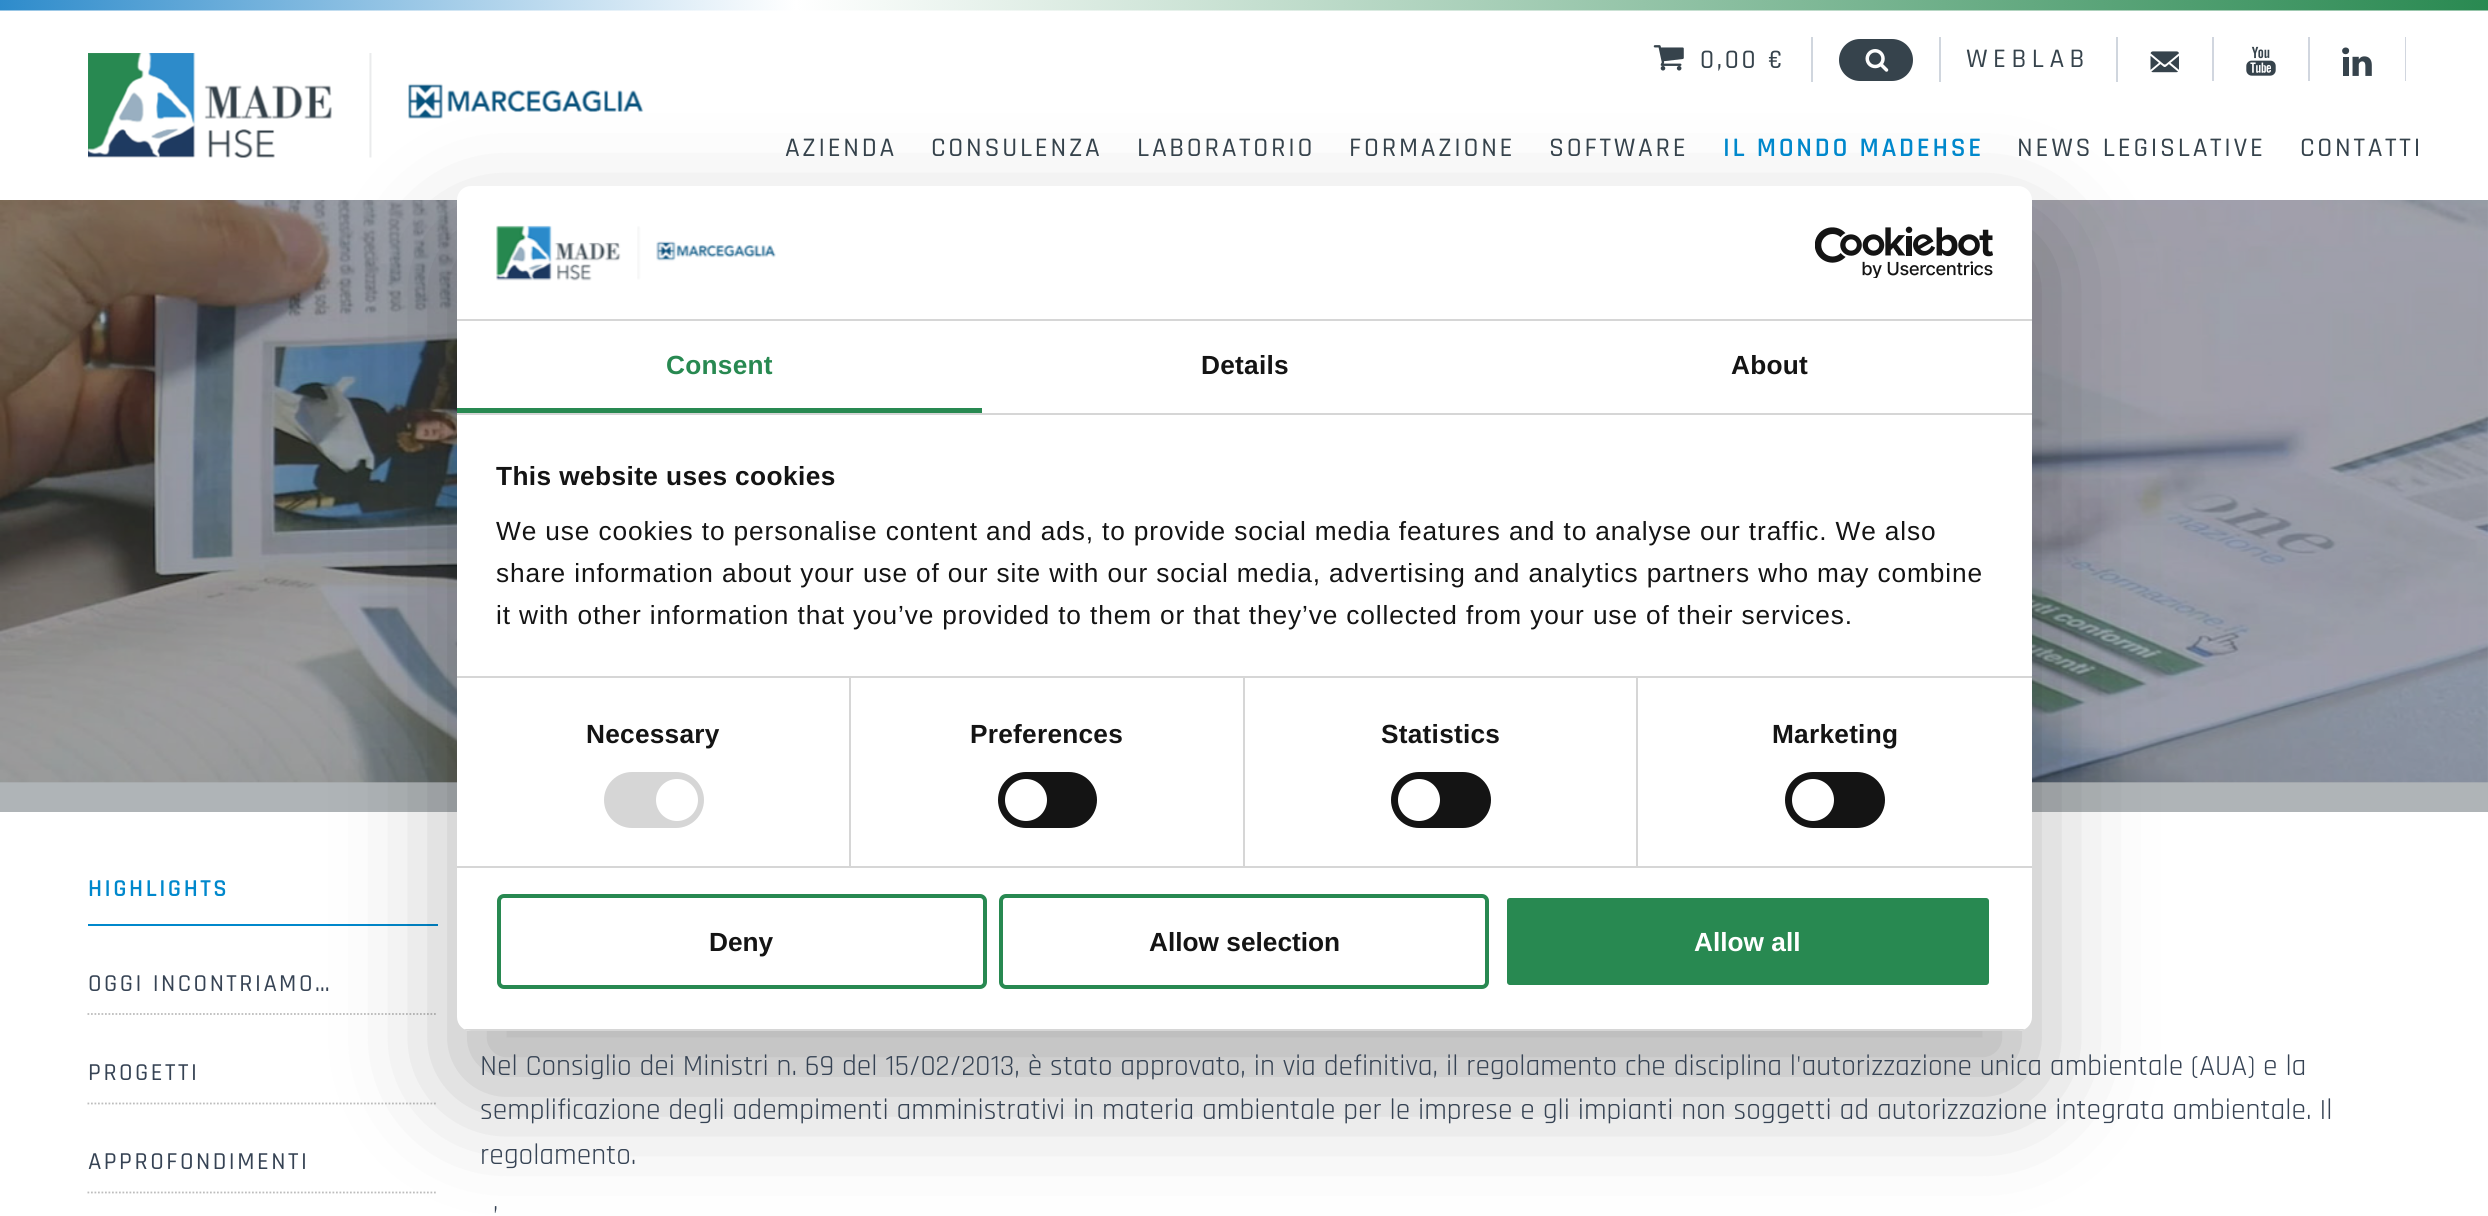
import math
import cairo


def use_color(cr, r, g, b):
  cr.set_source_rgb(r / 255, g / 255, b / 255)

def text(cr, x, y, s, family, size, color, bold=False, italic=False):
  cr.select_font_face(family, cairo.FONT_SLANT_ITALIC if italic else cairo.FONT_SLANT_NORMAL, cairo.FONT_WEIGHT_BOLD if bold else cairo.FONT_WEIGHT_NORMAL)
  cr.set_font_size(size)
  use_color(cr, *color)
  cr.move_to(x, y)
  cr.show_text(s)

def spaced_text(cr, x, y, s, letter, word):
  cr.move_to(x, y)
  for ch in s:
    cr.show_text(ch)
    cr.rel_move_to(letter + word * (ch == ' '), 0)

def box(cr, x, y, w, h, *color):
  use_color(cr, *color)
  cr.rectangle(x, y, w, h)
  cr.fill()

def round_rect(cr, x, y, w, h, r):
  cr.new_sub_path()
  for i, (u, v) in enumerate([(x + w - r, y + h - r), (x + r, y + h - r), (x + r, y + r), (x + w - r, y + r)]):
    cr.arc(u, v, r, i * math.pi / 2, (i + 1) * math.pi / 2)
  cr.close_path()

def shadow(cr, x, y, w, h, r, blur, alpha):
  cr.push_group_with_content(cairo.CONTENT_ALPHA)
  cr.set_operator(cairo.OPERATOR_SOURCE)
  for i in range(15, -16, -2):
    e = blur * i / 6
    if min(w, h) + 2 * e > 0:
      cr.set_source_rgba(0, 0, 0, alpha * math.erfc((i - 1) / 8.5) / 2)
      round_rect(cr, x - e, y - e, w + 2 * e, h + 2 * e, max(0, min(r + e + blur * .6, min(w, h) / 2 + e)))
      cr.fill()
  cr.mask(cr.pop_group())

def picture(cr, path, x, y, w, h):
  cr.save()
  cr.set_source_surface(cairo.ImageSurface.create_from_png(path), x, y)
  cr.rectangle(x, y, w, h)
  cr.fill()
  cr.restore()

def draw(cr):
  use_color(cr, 255, 255, 255)
  cr.paint()
  box(cr, 0, 200, 2488, 612, 175, 180, 183)
  picture(cr, "img_01.png", 0, 0, 2488, 11)
  picture(cr, "img_02.png", 88, 53, 556, 105)
  box(cr, 1811, 37, 2, 45, 208, 214, 222)
  picture(cr, "img_03.png", 1653, 45, 31, 26)
  box(cr, 1939, 37, 2, 45, 208, 214, 222)
  use_color(cr, 54, 67, 76)
  round_rect(cr, 1839, 39, 74, 42, 21)
  cr.fill()
  picture(cr, "img_04.png", 1865, 49, 24, 23)
  box(cr, 2116, 37, 2, 45, 208, 214, 222)
  box(cr, 2212, 37, 2, 44, 209, 214, 223)
  picture(cr, "img_05.png", 2150, 51, 29, 22)
  box(cr, 2308, 37, 2, 44, 209, 214, 223)
  picture(cr, "img_06.png", 2246, 46, 30, 30)
  box(cr, 2405, 37, 1, 44, 209, 214, 223)
  picture(cr, "img_07.png", 2342, 47, 30, 29)
  picture(cr, "img_08.png", 0, 200, 2488, 583)
  box(cr, 88, 924, 350, 2, 0, 136, 204)
  cr.new_path()
  cr.move_to(87.5, 1014)
  cr.line_to(437.5, 1014)
  use_color(cr, 189, 189, 189)
  cr.set_line_width(1.8)
  cr.set_dash([1.75, 1.75])
  cr.stroke()
  cr.new_path()
  cr.move_to(87.5, 1103.5)
  cr.line_to(437.5, 1103.5)
  cr.stroke()
  cr.new_path()
  cr.move_to(87.5, 1192.5)
  cr.line_to(437.5, 1192.5)
  cr.stroke()
  use_color(cr, 0, 0, 0)
  shadow(cr, 457, 242, 1575, 845, 14, 59.5, 0.3)
  use_color(cr, 255, 255, 255)
  round_rect(cr, 457, 186, 1575, 845, 14)
  cr.fill()
  box(cr, 457, 319, 1575, 2, 214, 214, 214)
  picture(cr, "img_09.png", 496, 225, 280, 56)
  picture(cr, "img_10.png", 1815, 226, 178, 52)
  box(cr, 457, 413, 1575, 2, 214, 214, 214)
  box(cr, 457, 408, 525, 5, 40, 137, 81)
  box(cr, 849, 677, 2, 189, 214, 214, 214)
  box(cr, 1243, 677, 2, 189, 214, 214, 214)
  box(cr, 1636, 677, 2, 189, 214, 214, 214)
  box(cr, 457, 676, 1575, 2, 214, 214, 214)
  box(cr, 457, 866, 1575, 2, 214, 214, 214)
  round_rect(cr, 604, 772, 100, 56, 28)
  cr.fill()
  use_color(cr, 255, 255, 255)
  cr.arc(677, 800, 21, 0, 2 * math.pi)
  cr.fill()
  use_color(cr, 20, 20, 20)
  round_rect(cr, 998, 772, 99, 56, 28)
  cr.fill()
  use_color(cr, 255, 255, 255)
  cr.arc(1026, 800, 21, 0, 2 * math.pi)
  cr.fill()
  use_color(cr, 20, 20, 20)
  round_rect(cr, 1391, 772, 100, 56, 28)
  cr.fill()
  use_color(cr, 255, 255, 255)
  cr.arc(1419, 800, 21, 0, 2 * math.pi)
  cr.fill()
  use_color(cr, 20, 20, 20)
  round_rect(cr, 1785, 772, 100, 56, 28)
  cr.fill()
  use_color(cr, 255, 255, 255)
  cr.arc(1813, 800, 21, 0, 2 * math.pi)
  cr.fill()
  cr.save()
  round_rect(cr, 457, 186, 1575, 845, 14)
  cr.clip()
  box(cr, 457, 1029, 1575, 2, 214, 214, 214)
  cr.restore()
  round_rect(cr, 499, 896, 486, 91, 5)
  use_color(cr, 40, 137, 81)
  cr.set_line_width(4)
  cr.set_dash([])
  cr.stroke()
  round_rect(cr, 1001, 896, 486, 91, 5)
  cr.stroke()
  round_rect(cr, 1505, 896, 486, 91, 5)
  cr.fill_preserve()
  use_color(cr, 255, 255, 255)
  cr.stroke()
  cr.select_font_face("Rajdhani Medium")
  cr.set_font_size(27)
  use_color(cr, 54, 67, 76)
  spaced_text(cr, 1700, 68, "0,00 €", 2.75, 0)
  spaced_text(cr, 1966, 67, "WEBLAB", 5.5, 0)
  spaced_text(cr, 785, 156, "AZIENDA", 2.75, 0)
  spaced_text(cr, 931, 156, "CONSULENZA", 2.75, 0)
  spaced_text(cr, 1137, 156, "LABORATORIO", 2.75, 0)
  spaced_text(cr, 1349, 156, "FORMAZIONE", 2.75, 0)
  spaced_text(cr, 1549, 156, "SOFTWARE", 2.75, 0)
  cr.select_font_face("Rajdhani SemiBold")
  use_color(cr, 0, 136, 204)
  spaced_text(cr, 1723, 156, "IL MONDO MADEHSE", 2.75, 0)
  cr.select_font_face("Rajdhani Medium")
  use_color(cr, 54, 67, 76)
  spaced_text(cr, 2017, 156, "NEWS LEGISLATIVE", 2.75, 0)
  spaced_text(cr, 2300, 156, "CONTATTI", 2.75, 0)
  cr.select_font_face("Rajdhani SemiBold")
  cr.set_font_size(24.5)
  use_color(cr, 0, 136, 204)
  spaced_text(cr, 88, 896, "HIGHLIGHTS", 2.5, 0)
  cr.select_font_face("Rajdhani Medium")
  use_color(cr, 54, 67, 84)
  spaced_text(cr, 88, 991, "OGGI INCONTRIAMO…", 2.5, 0)
  spaced_text(cr, 88, 1080, "PROGETTI", 2.5, 0)
  spaced_text(cr, 88, 1169, "APPROFONDIMENTI", 2.5, 0)
  text(cr, 480, 1075, "Nel Consiglio dei Ministri n. 69 del 15/02/2013, è stato approvato, in via definitiva, il regolamento che disciplina l'autorizzazione unica ambientale (AUA) e la", "Rajdhani", 29.4, (54, 67, 84))
  text(cr, 480, 1119, "semplificazione degli adempimenti amministrativi in materia ambientale per le imprese e gli impianti non soggetti ad autorizzazione integrata ambientale. Il", "Rajdhani", 29.4, (54, 67, 84))
  text(cr, 480, 1164, "regolamento.", "Rajdhani", 29.4, (54, 67, 84))
  text(cr, 493, 1225, "’", "Rajdhani", 29.4, (54, 67, 84))
  cr.select_font_face("Liberation Sans", cairo.FONT_SLANT_NORMAL, cairo.FONT_WEIGHT_BOLD)
  cr.set_font_size(26.25)
  use_color(cr, 40, 137, 81)
  spaced_text(cr, 666, 374, "Consent", 0.25, 0)
  use_color(cr, 20, 20, 20)
  spaced_text(cr, 1201, 374, "Details", 0.25, 0)
  spaced_text(cr, 1731, 374, "About", 0.25, 0)
  spaced_text(cr, 496, 485, "This website uses cookies", 0.4, 0)
  cr.select_font_face("Liberation Sans")
  spaced_text(cr, 496, 540, "We use cookies to personalise content and ads, to provide social media features and to analyse our traffic. We also", 0.88, 0)
  spaced_text(cr, 496, 582, "share information about your use of our site with our social media, advertising and analytics partners who may combine", 0.88, 0)
  spaced_text(cr, 496, 624, "it with other information that you’ve provided to them or that they’ve collected from your use of their services.", 0.88, 0)
  cr.select_font_face("Liberation Sans", cairo.FONT_SLANT_NORMAL, cairo.FONT_WEIGHT_BOLD)
  spaced_text(cr, 586, 743, "Necessary", 0.25, 0)
  spaced_text(cr, 970, 743, "Preferences", 0.25, 0)
  spaced_text(cr, 1381, 743, "Statistics", 0.25, 0)
  spaced_text(cr, 1772, 743, "Marketing", 0.25, 0)
  text(cr, 709, 951, "Deny", "Liberation Sans", 26.25, (20, 20, 20), bold=True)
  text(cr, 1149, 951, "Allow selection", "Liberation Sans", 26.25, (20, 20, 20), bold=True)
  text(cr, 1694, 951, "Allow all", "Liberation Sans", 26.25, (255, 255, 255), bold=True)


surface = cairo.ImageSurface(cairo.FORMAT_RGB24, 2488, 1216)
cr = cairo.Context(surface)
options = cairo.FontOptions()
options.set_hint_metrics(cairo.HINT_METRICS_OFF)
options.set_hint_style(cairo.HINT_STYLE_NONE)
cr.set_font_options(options)
cr.set_miter_limit(4)
draw(cr)
surface.write_to_png("out.png")
